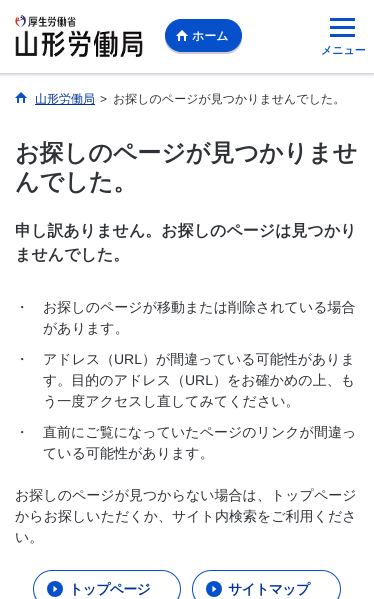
import math
import cairo


def use_color(cr, r, g, b):
  cr.set_source_rgb(r / 255, g / 255, b / 255)

def text(cr, x, y, s, family, size, color, bold=False, italic=False):
  cr.select_font_face(family, cairo.FONT_SLANT_ITALIC if italic else cairo.FONT_SLANT_NORMAL, cairo.FONT_WEIGHT_BOLD if bold else cairo.FONT_WEIGHT_NORMAL)
  cr.set_font_size(size)
  use_color(cr, *color)
  cr.move_to(x, y)
  cr.show_text(s)

def spaced_text(cr, x, y, s, letter, word):
  cr.move_to(x, y)
  for ch in s:
    cr.show_text(ch)
    cr.rel_move_to(letter + word * (ch == ' '), 0)

def box(cr, x, y, w, h, *color):
  use_color(cr, *color)
  cr.rectangle(x, y, w, h)
  cr.fill()

def round_rect(cr, x, y, w, h, r):
  cr.new_sub_path()
  for i, (u, v) in enumerate([(x + w - r, y + h - r), (x + r, y + h - r), (x + r, y + r), (x + w - r, y + r)]):
    cr.arc(u, v, r, i * math.pi / 2, (i + 1) * math.pi / 2)
  cr.close_path()

def shadow(cr, x, y, w, h, r, blur, alpha):
  cr.push_group_with_content(cairo.CONTENT_ALPHA)
  cr.set_operator(cairo.OPERATOR_SOURCE)
  for i in range(15, -16, -2):
    e = blur * i / 6
    if min(w, h) + 2 * e > 0:
      cr.set_source_rgba(0, 0, 0, alpha * math.erfc((i - 1) / 8.5) / 2)
      round_rect(cr, x - e, y - e, w + 2 * e, h + 2 * e, max(0, min(r + e + blur * .6, min(w, h) / 2 + e)))
      cr.fill()
  cr.mask(cr.pop_group())

def picture(cr, path, x, y, w, h):
  cr.save()
  cr.set_source_surface(cairo.ImageSurface.create_from_png(path), x, y)
  cr.rectangle(x, y, w, h)
  cr.fill()
  cr.restore()

def draw(cr):
  use_color(cr, 255, 255, 255)
  cr.paint()
  cr.save()
  cr.rectangle(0, 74, 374, 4)
  cr.clip()
  use_color(cr, 211, 214, 221)
  shadow(cr, 0, 1, 374, 74, 0, 1.5, 1)
  cr.restore()
  box(cr, 0, 73, 374, 1, 211, 214, 221)
  picture(cr, "img_01.png", 10, 11, 133, 50)
  use_color(cr, 204, 204, 204)
  cr.new_path()
  cr.move_to(165, 36)
  cr.line_to(165, 38)
  cr.curve_to(165, 47, 172, 54, 182, 54)
  cr.line_to(226, 54)
  cr.curve_to(235, 54, 242, 47, 242, 38)
  cr.line_to(242, 36)
  cr.curve_to(241, 45, 234, 52, 226, 52)
  cr.line_to(182, 52)
  cr.curve_to(173, 52, 166, 45, 165, 36)
  cr.close_path()
  cr.fill()
  use_color(cr, 6, 80, 203)
  round_rect(cr, 165.5, 19.5, 76, 32, 16)
  cr.fill_preserve()
  cr.set_line_width(1)
  cr.stroke()
  picture(cr, "img_02.png", 176, 30, 12, 11)
  box(cr, 330, 26, 25, 3, 6, 80, 203)
  box(cr, 330, 18, 25, 3, 6, 80, 203)
  box(cr, 330, 34, 25, 3, 6, 80, 203)
  picture(cr, "img_03.png", 15, 92, 12, 11)
  box(cr, 35, 104, 60, 1, 0, 51, 153)
  use_color(cr, 204, 204, 204)
  cr.new_path()
  cr.move_to(33, 590)
  cr.line_to(33, 591)
  cr.curve_to(33, 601, 42, 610, 52, 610)
  cr.line_to(162, 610)
  cr.curve_to(172, 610, 181, 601, 181, 591)
  cr.line_to(181, 590)
  cr.curve_to(180, 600, 172, 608, 162, 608)
  cr.line_to(52, 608)
  cr.curve_to(42, 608, 34, 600, 33, 590)
  cr.close_path()
  cr.fill()
  use_color(cr, 255, 255, 255)
  round_rect(cr, 33.5, 570.5, 147, 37, 18.5)
  cr.fill_preserve()
  use_color(cr, 6, 80, 203)
  cr.stroke()
  picture(cr, "img_04.png", 47, 581, 16, 16)
  use_color(cr, 204, 204, 204)
  cr.new_path()
  cr.move_to(192, 590)
  cr.line_to(192, 591)
  cr.curve_to(192, 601, 201, 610, 211, 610)
  cr.line_to(322, 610)
  cr.curve_to(332, 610, 341, 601, 341, 591)
  cr.line_to(341, 590)
  cr.curve_to(340, 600, 332, 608, 322, 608)
  cr.line_to(211, 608)
  cr.curve_to(201, 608, 193, 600, 192, 590)
  cr.close_path()
  cr.fill()
  use_color(cr, 255, 255, 255)
  round_rect(cr, 192.5, 570.5, 148, 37, 18.5)
  cr.fill_preserve()
  use_color(cr, 6, 80, 203)
  cr.stroke()
  picture(cr, "img_04.png", 206, 581, 16, 16)
  text(cr, 192, 40, "ホーム", "WenQuanYi Zen Hei", 12, (255, 255, 255), bold=True)
  text(cr, 321, 54, "メニュー", "WenQuanYi Zen Hei", 11, (6, 80, 203), bold=True)
  text(cr, 35, 103, "山形労働局", "WenQuanYi Zen Hei Medium", 12, (0, 51, 153))
  text(cr, 100, 103, ">", "Liberation Sans", 12, (46, 49, 54))
  text(cr, 113, 103, "お探しのページが見つかりませんでした。", "WenQuanYi Zen Hei Medium", 12, (46, 49, 54))
  text(cr, 15, 161, "お探しのページが見つかりませ", "WenQuanYi Zen Hei", 24, (46, 49, 54), bold=True)
  text(cr, 15, 190, "んでした。", "WenQuanYi Zen Hei", 24, (46, 49, 54), bold=True)
  text(cr, 15, 236, "申し訳ありません。お探しのページは見つかり", "WenQuanYi Zen Hei", 16, (46, 49, 54), bold=True)
  text(cr, 15, 260, "ませんでした。", "WenQuanYi Zen Hei", 16, (46, 49, 54), bold=True)
  text(cr, 15, 312, "・", "WenQuanYi Zen Hei Medium", 14, (46, 49, 54))
  text(cr, 43, 312, "お探しのページが移動または削除されている場合", "WenQuanYi Zen Hei Medium", 14, (46, 49, 54))
  text(cr, 43, 333, "があります。", "WenQuanYi Zen Hei Medium", 14, (46, 49, 54))
  text(cr, 15, 364, "・", "WenQuanYi Zen Hei Medium", 14, (46, 49, 54))
  text(cr, 43, 364, "アドレス（", "WenQuanYi Zen Hei Medium", 14, (46, 49, 54))
  text(cr, 114, 364, "URL", "Liberation Sans", 14, (46, 49, 54))
  text(cr, 142, 364, "）が間違っている可能性がありま", "WenQuanYi Zen Hei Medium", 14, (46, 49, 54))
  text(cr, 43, 385, "す。目的のアドレス（", "WenQuanYi Zen Hei Medium", 14, (46, 49, 54))
  text(cr, 185, 385, "URL", "Liberation Sans", 14, (46, 49, 54))
  text(cr, 213, 385, "）をお確かめの上、も", "WenQuanYi Zen Hei Medium", 14, (46, 49, 54))
  text(cr, 43, 406, "う一度アクセスし直してみてください。", "WenQuanYi Zen Hei Medium", 14, (46, 49, 54))
  text(cr, 15, 437, "・", "WenQuanYi Zen Hei Medium", 14, (46, 49, 54))
  text(cr, 43, 437, "直前にご覧になっていたページのリンクが間違っ", "WenQuanYi Zen Hei Medium", 14, (46, 49, 54))
  text(cr, 43, 458, "ている可能性があります。", "WenQuanYi Zen Hei Medium", 14, (46, 49, 54))
  text(cr, 15, 500, "お探しのページが見つからない場合は、トップページ", "WenQuanYi Zen Hei Medium", 14, (46, 49, 54))
  text(cr, 15, 521, "からお探しいただくか、サイト内検索をご利用くださ", "WenQuanYi Zen Hei Medium", 14, (46, 49, 54))
  text(cr, 15, 542, "い。", "WenQuanYi Zen Hei Medium", 14, (46, 49, 54))
  cr.select_font_face("WenQuanYi Zen Hei", cairo.FONT_SLANT_NORMAL, cairo.FONT_WEIGHT_BOLD)
  use_color(cr, 0, 51, 153)
  spaced_text(cr, 69, 594, "トップページ", -0.75, 0)
  spaced_text(cr, 228, 594, "サイトマップ", -0.75, 0)


surface = cairo.ImageSurface(cairo.FORMAT_RGB24, 374, 599)
cr = cairo.Context(surface)
options = cairo.FontOptions()
options.set_hint_metrics(cairo.HINT_METRICS_OFF)
options.set_hint_style(cairo.HINT_STYLE_NONE)
cr.set_font_options(options)
cr.set_miter_limit(4)
draw(cr)
surface.write_to_png("out.png")
